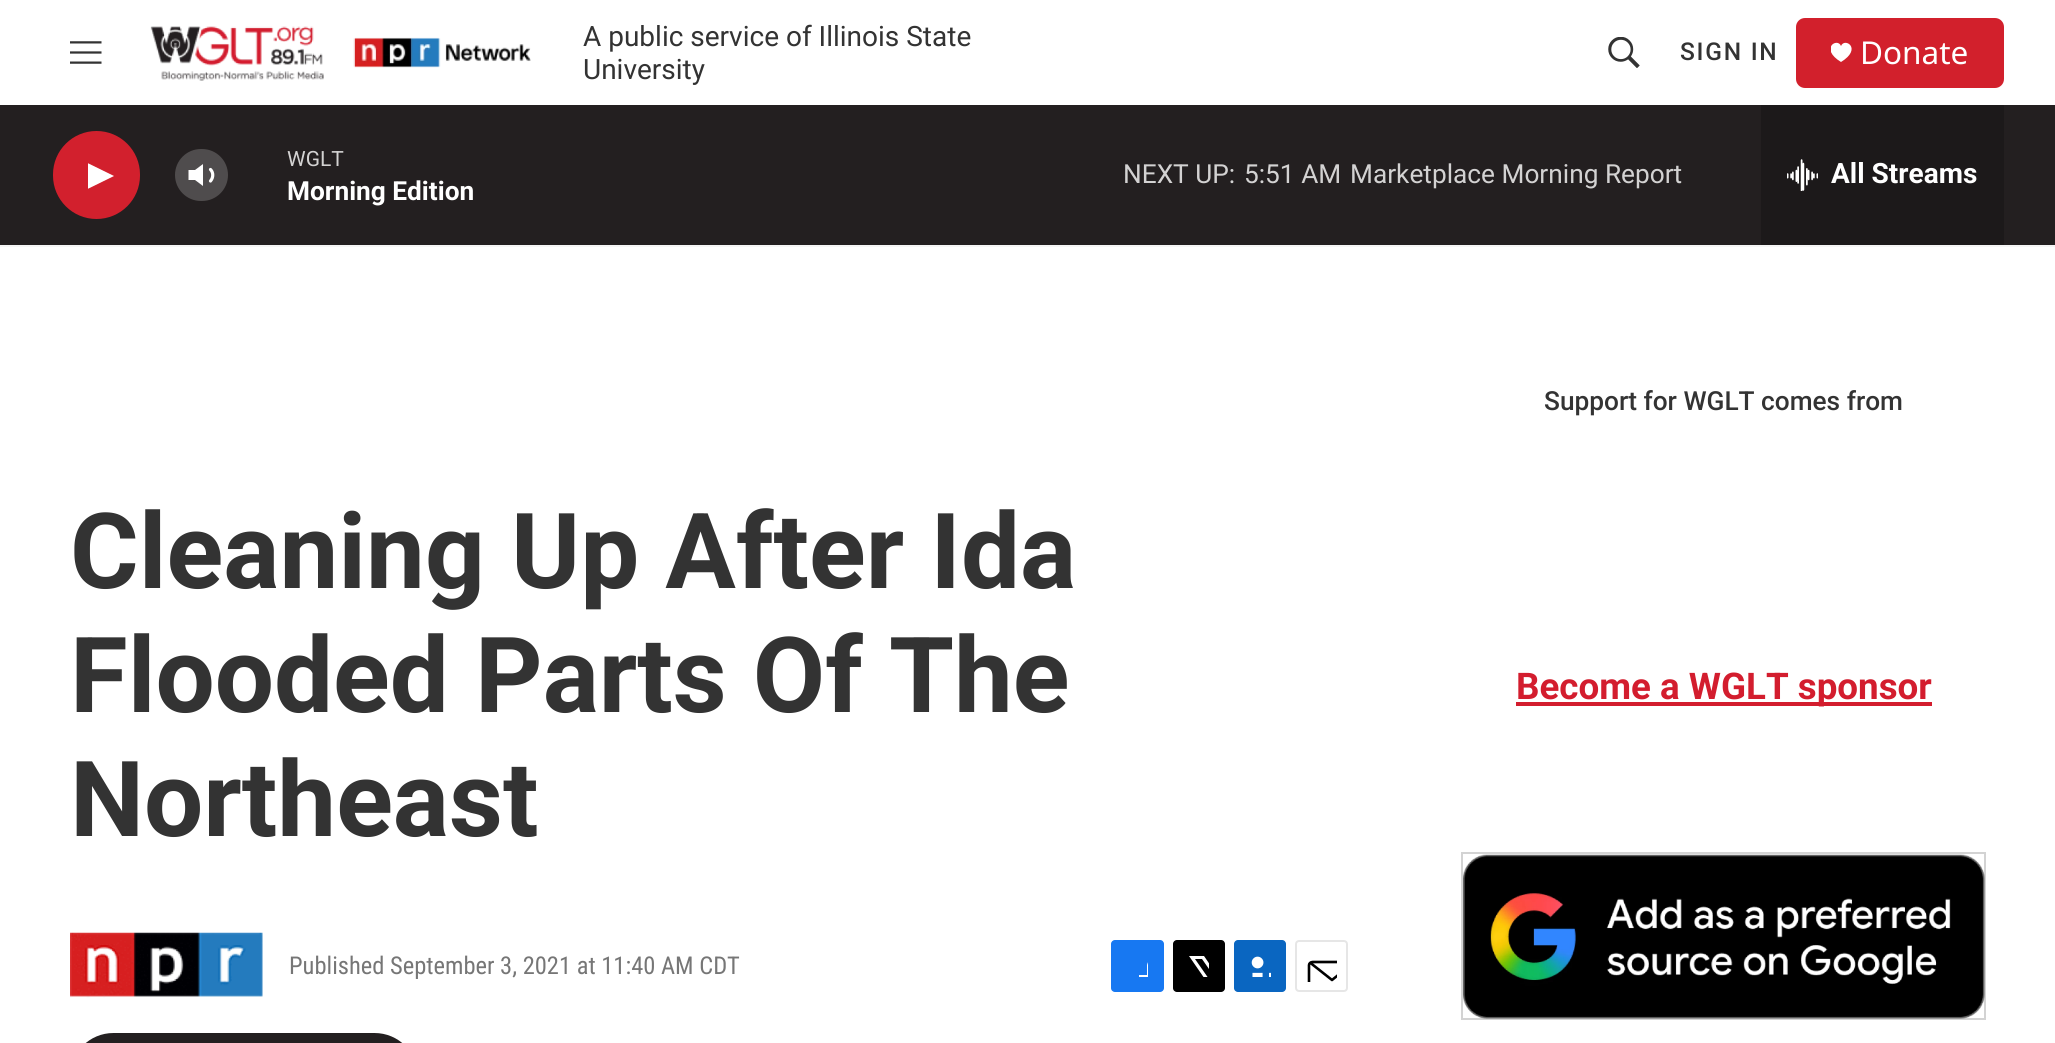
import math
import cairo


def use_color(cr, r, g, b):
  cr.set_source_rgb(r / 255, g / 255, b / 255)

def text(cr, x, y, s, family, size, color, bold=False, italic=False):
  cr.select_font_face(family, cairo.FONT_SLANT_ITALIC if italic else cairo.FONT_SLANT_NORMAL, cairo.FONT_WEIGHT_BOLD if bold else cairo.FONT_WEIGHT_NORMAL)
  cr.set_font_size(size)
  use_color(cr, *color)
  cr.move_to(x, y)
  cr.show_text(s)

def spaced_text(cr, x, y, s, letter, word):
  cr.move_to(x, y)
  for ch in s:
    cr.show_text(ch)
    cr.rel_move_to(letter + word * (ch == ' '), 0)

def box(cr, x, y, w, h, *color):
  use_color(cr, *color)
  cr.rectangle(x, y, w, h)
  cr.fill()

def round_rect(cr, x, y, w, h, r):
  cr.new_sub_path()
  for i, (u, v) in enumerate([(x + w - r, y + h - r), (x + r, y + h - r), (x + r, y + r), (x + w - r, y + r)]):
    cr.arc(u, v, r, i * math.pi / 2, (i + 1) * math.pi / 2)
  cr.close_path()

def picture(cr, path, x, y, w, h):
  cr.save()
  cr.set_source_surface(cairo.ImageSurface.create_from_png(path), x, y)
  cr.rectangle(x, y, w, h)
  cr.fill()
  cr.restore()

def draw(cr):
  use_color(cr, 255, 255, 255)
  cr.paint()
  box(cr, 0, 245, 2055, 2, 245, 245, 245)
  picture(cr, "img_01.png", 70, 41, 32, 23)
  picture(cr, "img_02.png", 150, 26, 381, 55)
  picture(cr, "img_03.png", 1608, 37, 32, 31)
  use_color(cr, 210, 32, 44)
  round_rect(cr, 1796, 18, 208, 70, 9)
  cr.fill()
  cr.save()
  cr.rectangle(1831, 42, 21, 21)
  cr.clip()
  use_color(cr, 255, 255, 255)
  cr.new_path()
  cr.move_to(1841, 46)
  cr.curve_to(1837.5, 37, 1819, 48.5, 1841, 62)
  cr.curve_to(1863, 48.5, 1844.5, 37, 1841, 46)
  cr.close_path()
  cr.fill()
  cr.restore()
  box(cr, 0, 105, 2055, 140, 35, 31, 32)
  use_color(cr, 210, 32, 45)
  round_rect(cr, 53, 131, 87, 88, 43.5)
  cr.fill()
  cr.save()
  cr.rectangle(88, 159, 26, 34)
  cr.clip()
  use_color(cr, 255, 255, 255)
  cr.new_path()
  cr.move_to(87.5, 163)
  cr.line_to(114, 176)
  cr.line_to(87.5, 189)
  cr.close_path()
  cr.fill()
  cr.restore()
  use_color(cr, 255, 255, 255)
  cr.new_path()
  cr.move_to(203, 164)
  cr.line_to(195, 170)
  cr.line_to(188.5, 170)
  cr.line_to(188.5, 180)
  cr.line_to(195, 180)
  cr.line_to(203, 186)
  cr.close_path()
  cr.fill()
  cr.new_path()
  cr.move_to(210.5, 169.5)
  cr.curve_to(213.5, 172.5, 213.5, 177.5, 210.5, 181)
  cr.set_line_width(3.2)
  cr.set_line_cap(cairo.LINE_CAP_ROUND)
  cr.set_line_join(cairo.LINE_JOIN_ROUND)
  cr.stroke()
  cr.set_source_rgba(1, 1, 1, 0.2)
  round_rect(cr, 175, 149, 53, 52, 26)
  cr.fill()
  box(cr, 1761, 105, 243, 140, 28, 25, 26)
  picture(cr, "img_04.png", 1787, 159, 31, 32)
  picture(cr, "img_05.png", 70, 932, 193, 66)
  use_color(cr, 23, 120, 242)
  round_rect(cr, 1111, 940, 53, 52, 4)
  cr.fill()
  cr.save()
  cr.rectangle(1127, 956, 21, 21)
  cr.clip()
  use_color(cr, 255, 255, 255)
  cr.new_path()
  cr.move_to(1156, 992)
  cr.line_to(1147, 992)
  cr.line_to(1147, 984)
  cr.line_to(1139, 984)
  cr.line_to(1139, 975)
  cr.line_to(1147, 975)
  cr.line_to(1147, 965)
  cr.curve_to(1149, 956.5, 1157, 955, 1164, 956.5)
  cr.line_to(1164, 964)
  cr.curve_to(1154, 964, 1156, 967, 1156, 975)
  cr.line_to(1164, 975)
  cr.line_to(1163, 984)
  cr.line_to(1156, 984)
  cr.close_path()
  cr.fill()
  cr.restore()
  use_color(cr, 0, 0, 0)
  round_rect(cr, 1173, 940, 52, 52, 4)
  cr.fill()
  cr.save()
  cr.rectangle(1188, 956, 21, 21)
  cr.clip()
  use_color(cr, 255, 255, 255)
  cr.new_path()
  cr.move_to(1219, 978)
  cr.line_to(1225, 986.5)
  cr.curve_to(1225, 988, 1225, 989.5, 1224, 990.5)
  cr.line_to(1202, 959)
  cr.line_to(1195, 959)
  cr.line_to(1218, 992)
  cr.line_to(1214, 992)
  cr.line_to(1211, 988)
  cr.line_to(1207.5, 992)
  cr.line_to(1203, 992)
  cr.line_to(1209, 985)
  cr.line_to(1189, 956)
  cr.line_to(1204, 956)
  cr.line_to(1217, 975)
  cr.line_to(1225, 966)
  cr.line_to(1225, 971)
  cr.close_path()
  cr.fill()
  cr.restore()
  use_color(cr, 10, 102, 193)
  round_rect(cr, 1234, 940, 52, 52, 4)
  cr.fill()
  picture(cr, "img_06.png", 1251, 956, 20, 21)
  round_rect(cr, 1296, 941, 51, 50, 3)
  use_color(cr, 230, 230, 230)
  cr.set_line_width(2)
  cr.set_line_cap(cairo.LINE_CAP_BUTT)
  cr.set_line_join(cairo.LINE_JOIN_MITER)
  cr.stroke()
  cr.save()
  cr.rectangle(1306, 950, 31, 32)
  cr.clip()
  cr.new_path()
  cr.move_to(1354.5, 988.5)
  cr.curve_to(1354.5, 990.5, 1353, 992, 1351, 992)
  cr.line_to(1312.5, 992)
  cr.curve_to(1310.5, 992, 1309, 990.5, 1309, 988.5)
  cr.line_to(1309, 965)
  cr.curve_to(1309, 963.5, 1310.5, 962, 1312.5, 962)
  cr.line_to(1351, 962)
  cr.curve_to(1353, 962, 1354.5, 963.5, 1354.5, 965)
  cr.close_path()
  cr.move_to(1353, 963)
  cr.line_to(1332, 980)
  cr.line_to(1310.5, 963)
  use_color(cr, 0, 0, 0)
  cr.set_line_width(2.6)
  cr.set_line_cap(cairo.LINE_CAP_ROUND)
  cr.set_line_join(cairo.LINE_JOIN_ROUND)
  cr.stroke()
  cr.restore()
  use_color(cr, 35, 31, 32)
  round_rect(cr, 70, 1033, 348, 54, 43.5)
  cr.fill()
  box(cr, 1516, 702, 416, 4, 211, 29, 46)
  cr.rectangle(1462, 853, 523, 166)
  use_color(cr, 211, 211, 211)
  cr.stroke()
  picture(cr, "img_07.png", 1463, 854, 522, 165)
  text(cr, 583, 46, "A public service of Illinois State", "Roboto", 28, (51, 51, 51))
  text(cr, 583, 79, "University", "Roboto", 28, (51, 51, 51))
  cr.select_font_face("Roboto Medium")
  cr.set_font_size(24.5)
  spaced_text(cr, 1680, 60, "SIGN IN", 1.75, 0)
  text(cr, 1860, 64, "Donate", "Noto Sans", 31.5, (255, 255, 255))
  text(cr, 287, 166, "WGLT", "Roboto", 21, (211, 210, 210))
  text(cr, 287, 200, "Morning Edition", "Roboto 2", 26.25, (255, 255, 255), bold=True)
  text(cr, 1123, 183, "NEXT UP:", "Roboto", 26.25, (211, 210, 210))
  text(cr, 1244, 183, "5:51 AM", "Roboto", 26.25, (211, 210, 210))
  text(cr, 1350, 183, "Marketplace Morning Report", "Roboto", 26.25, (211, 210, 210))
  text(cr, 1831, 183, "All Streams", "Roboto 2", 28, (255, 255, 255), bold=True)
  text(cr, 70, 588, "Cleaning Up After Ida", "Roboto", 105, (51, 51, 51), bold=True)
  text(cr, 70, 712, "Flooded Parts Of The", "Roboto", 105, (51, 51, 51), bold=True)
  text(cr, 70, 836, "Northeast", "Roboto", 105, (51, 51, 51), bold=True)
  text(cr, 289, 974, "Published September 3, 2021 at 11:40 AM CDT", "Roboto Condensed", 24.5, (118, 118, 118))
  text(cr, 1544, 410, "Support for WGLT comes from", "Roboto Medium", 26.25, (51, 51, 51))
  text(cr, 1516, 699, "Become a WGLT sponsor", "Roboto 2", 36.75, (211, 29, 46), bold=True)


surface = cairo.ImageSurface(cairo.FORMAT_RGB24, 2055, 1043)
cr = cairo.Context(surface)
options = cairo.FontOptions()
options.set_hint_metrics(cairo.HINT_METRICS_OFF)
options.set_hint_style(cairo.HINT_STYLE_NONE)
cr.set_font_options(options)
cr.set_miter_limit(4)
draw(cr)
surface.write_to_png("out.png")
